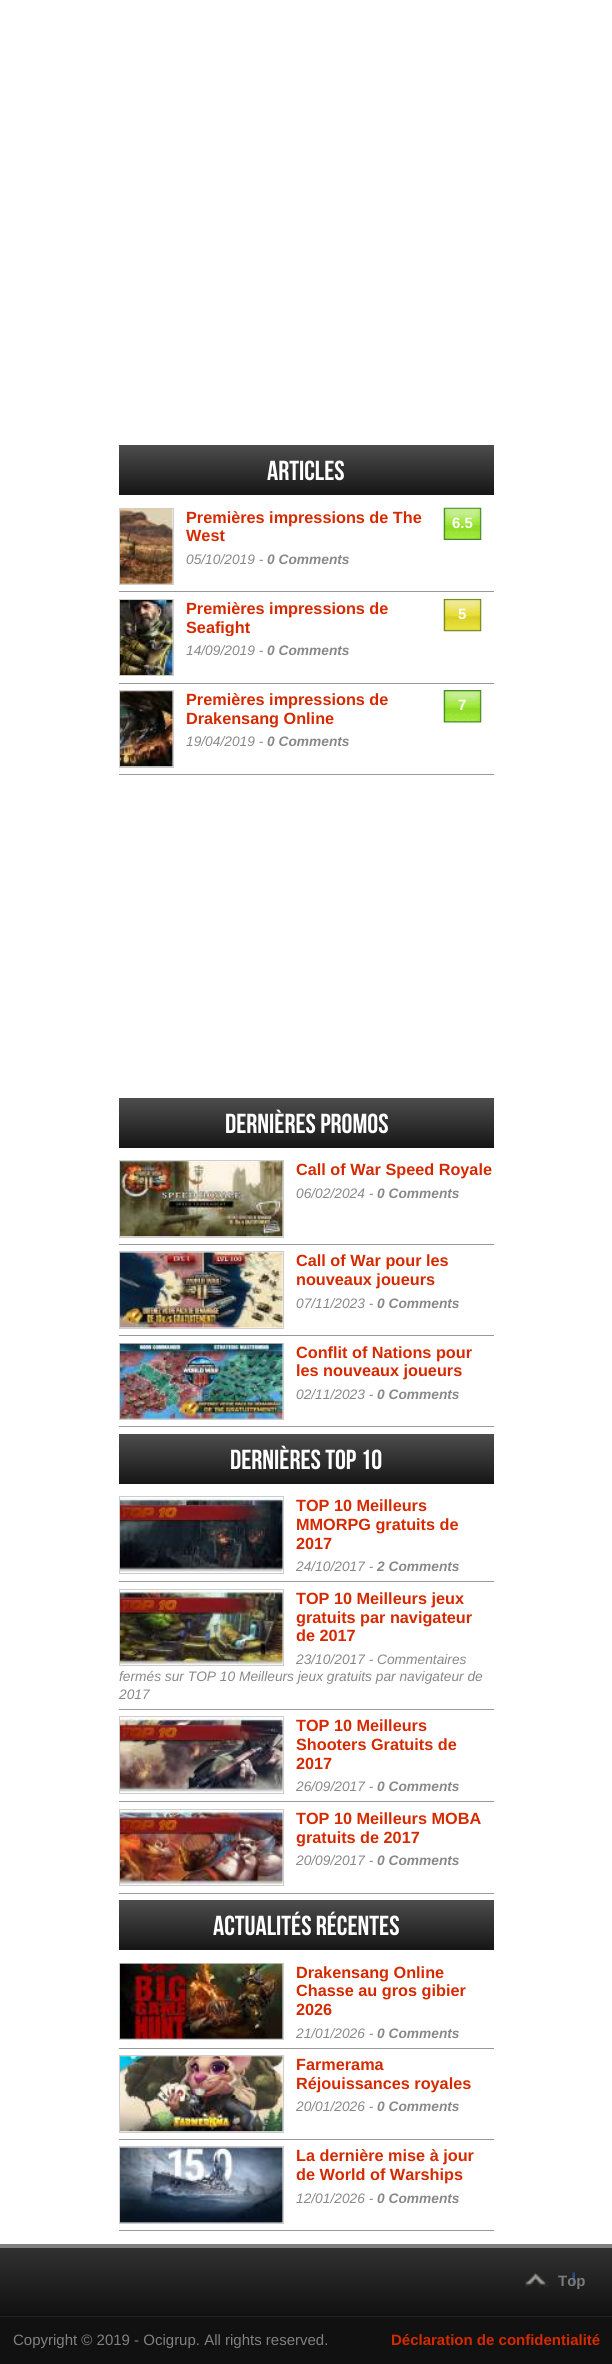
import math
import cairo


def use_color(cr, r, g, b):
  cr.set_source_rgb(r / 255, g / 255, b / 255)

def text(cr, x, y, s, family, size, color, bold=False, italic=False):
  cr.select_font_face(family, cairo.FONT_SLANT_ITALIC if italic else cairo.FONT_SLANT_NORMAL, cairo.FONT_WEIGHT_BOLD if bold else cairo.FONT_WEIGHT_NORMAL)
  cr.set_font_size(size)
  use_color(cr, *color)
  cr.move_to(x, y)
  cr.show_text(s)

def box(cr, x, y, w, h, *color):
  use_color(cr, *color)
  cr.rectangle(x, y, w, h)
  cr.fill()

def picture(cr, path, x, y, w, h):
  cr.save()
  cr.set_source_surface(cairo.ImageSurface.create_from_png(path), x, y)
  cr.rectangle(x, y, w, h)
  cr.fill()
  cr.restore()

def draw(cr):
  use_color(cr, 255, 255, 255)
  cr.paint()
  gradient = cairo.LinearGradient(306, 445, 306, 495)
  gradient.add_color_stop_rgba(0, 0.302, 0.302, 0.302, 1)
  gradient.add_color_stop_rgba(1, 0.082, 0.082, 0.082, 1)
  cr.set_source(gradient)
  cr.rectangle(119, 445, 375, 50)
  cr.fill()
  box(cr, 119, 591, 375, 1, 153, 153, 153)
  cr.rectangle(119.5, 508.5, 54, 76)
  use_color(cr, 204, 204, 204)
  cr.set_line_width(1)
  cr.stroke()
  picture(cr, "img_01.png", 120, 508, 53, 76)
  picture(cr, "img_02.png", 443, 507, 39, 33)
  box(cr, 119, 683, 375, 1, 153, 153, 153)
  cr.rectangle(119.5, 599.5, 54, 76)
  use_color(cr, 204, 204, 204)
  cr.stroke()
  picture(cr, "img_03.png", 120, 600, 53, 75)
  picture(cr, "img_04.png", 443, 598, 39, 34)
  box(cr, 119, 774, 375, 1, 153, 153, 153)
  cr.rectangle(119.5, 690.5, 54, 77)
  use_color(cr, 204, 204, 204)
  cr.stroke()
  picture(cr, "img_05.png", 120, 691, 53, 76)
  picture(cr, "img_06.png", 443, 690, 39, 33)
  gradient = cairo.LinearGradient(306, 1098, 306, 1148)
  gradient.add_color_stop_rgba(0, 0.302, 0.302, 0.302, 1)
  gradient.add_color_stop_rgba(1, 0.082, 0.082, 0.082, 1)
  cr.set_source(gradient)
  cr.rectangle(119, 1098, 375, 50)
  cr.fill()
  box(cr, 119, 1244, 375, 1, 153, 153, 153)
  cr.rectangle(119.5, 1160.5, 164, 77)
  use_color(cr, 204, 204, 204)
  cr.stroke()
  picture(cr, "img_07.png", 120, 1161, 163, 76)
  box(cr, 119, 1335, 375, 1, 153, 153, 153)
  cr.rectangle(119.5, 1251.5, 164, 77)
  use_color(cr, 204, 204, 204)
  cr.stroke()
  picture(cr, "img_08.png", 120, 1252, 163, 76)
  box(cr, 119, 1426, 375, 1, 153, 153, 153)
  cr.rectangle(119.5, 1343.5, 164, 76)
  use_color(cr, 204, 204, 204)
  cr.stroke()
  picture(cr, "img_09.png", 120, 1343, 163, 76)
  gradient = cairo.LinearGradient(306, 1434, 306, 1484)
  gradient.add_color_stop_rgba(0, 0.302, 0.302, 0.302, 1)
  gradient.add_color_stop_rgba(1, 0.082, 0.082, 0.082, 1)
  cr.set_source(gradient)
  cr.rectangle(119, 1434, 375, 50)
  cr.fill()
  box(cr, 119, 1581, 375, 1, 153, 153, 153)
  cr.rectangle(119.5, 1496.5, 164, 77)
  use_color(cr, 204, 204, 204)
  cr.stroke()
  picture(cr, "img_10.png", 120, 1497, 163, 76)
  box(cr, 119, 1709, 375, 1, 153, 153, 153)
  cr.rectangle(119.5, 1589.5, 164, 76)
  use_color(cr, 204, 204, 204)
  cr.stroke()
  picture(cr, "img_11.png", 120, 1590, 163, 75)
  box(cr, 119, 1801, 375, 1, 153, 153, 153)
  cr.rectangle(119.5, 1716.5, 164, 77)
  use_color(cr, 204, 204, 204)
  cr.stroke()
  picture(cr, "img_12.png", 120, 1717, 163, 76)
  box(cr, 119, 1893, 375, 1, 153, 153, 153)
  cr.rectangle(119.5, 1809.5, 164, 76)
  use_color(cr, 204, 204, 204)
  cr.stroke()
  picture(cr, "img_13.png", 120, 1810, 163, 75)
  gradient = cairo.LinearGradient(306, 1900, 306, 1950)
  gradient.add_color_stop_rgba(0, 0.302, 0.302, 0.302, 1)
  gradient.add_color_stop_rgba(1, 0.082, 0.082, 0.082, 1)
  cr.set_source(gradient)
  cr.rectangle(119, 1900, 375, 50)
  cr.fill()
  box(cr, 119, 2048, 375, 1, 153, 153, 153)
  cr.rectangle(119.5, 1963.5, 164, 76)
  use_color(cr, 204, 204, 204)
  cr.stroke()
  picture(cr, "img_14.png", 120, 1963, 163, 76)
  box(cr, 119, 2139, 375, 1, 153, 153, 153)
  cr.rectangle(119.5, 2055.5, 164, 77)
  use_color(cr, 204, 204, 204)
  cr.stroke()
  picture(cr, "img_15.png", 120, 2056, 163, 76)
  box(cr, 119, 2230, 375, 1, 153, 153, 153)
  cr.rectangle(119.5, 2146.5, 164, 77)
  use_color(cr, 204, 204, 204)
  cr.stroke()
  picture(cr, "img_16.png", 120, 2147, 163, 76)
  gradient = cairo.LinearGradient(306, 2248, 306, 2316)
  gradient.add_color_stop_rgba(0, 0.192, 0.192, 0.192, 1)
  gradient.add_color_stop_rgba(1, 0.063, 0.063, 0.063, 1)
  cr.set_source(gradient)
  cr.rectangle(0, 2248, 612, 68)
  cr.fill()
  box(cr, 0, 2244, 612, 4, 128, 128, 128)
  picture(cr, "img_17.png", 525, 2272, 50, 16)
  box(cr, 0, 2317, 612, 47, 17, 17, 17)
  box(cr, 0, 2316, 612, 1, 34, 34, 34)
  text(cr, 267, 480, "Articles", "Bebas Neue", 27.5, (255, 255, 255))
  text(cr, 186, 523, "Premières impressions de The", "Liberation Sans", 16.25, (213, 42, 0), bold=True)
  text(cr, 186, 541, "West", "Liberation Sans", 16.25, (213, 42, 0), bold=True)
  text(cr, 452, 528, "6.5", "Liberation Sans", 15, (255, 255, 255), bold=True)
  text(cr, 186, 564, "05/10/2019 -", "Liberation Sans", 13.75, (136, 136, 136), italic=True)
  text(cr, 267, 564, "0 Comments", "Liberation Sans", 13.75, (136, 136, 136), bold=True, italic=True)
  text(cr, 186, 614, "Premières impressions de", "Liberation Sans", 16.25, (213, 42, 0), bold=True)
  cr.save()
  cr.rectangle(186, 599, 250, 37)
  cr.clip()
  text(cr, 186, 633, "Seafight", "Liberation Sans", 16.25, (213, 42, 0), bold=True)
  cr.restore()
  text(cr, 458, 619, "5", "Liberation Sans", 15, (255, 255, 255), bold=True)
  text(cr, 186, 655, "14/09/2019 -", "Liberation Sans", 13.75, (136, 136, 136), italic=True)
  text(cr, 267, 655, "0 Comments", "Liberation Sans", 13.75, (136, 136, 136), bold=True, italic=True)
  text(cr, 186, 705, "Premières impressions de", "Liberation Sans", 16.25, (213, 42, 0), bold=True)
  text(cr, 186, 724, "Drakensang Online", "Liberation Sans", 16.25, (213, 42, 0), bold=True)
  text(cr, 458, 710, "7", "Liberation Sans", 15, (255, 255, 255), bold=True)
  text(cr, 186, 746, "19/04/2019 -", "Liberation Sans", 13.75, (136, 136, 136), italic=True)
  text(cr, 267, 746, "0 Comments", "Liberation Sans", 13.75, (136, 136, 136), bold=True, italic=True)
  text(cr, 225, 1133, "Dernières promos", "Bebas Neue", 27.5, (255, 255, 255))
  text(cr, 296, 1175, "Call of War Speed Royale", "Liberation Sans", 16.25, (213, 42, 0), bold=True)
  text(cr, 296, 1198, "06/02/2024 -", "Liberation Sans", 13.75, (136, 136, 136), italic=True)
  text(cr, 377, 1198, "0 Comments", "Liberation Sans", 13.75, (136, 136, 136), bold=True, italic=True)
  text(cr, 296, 1266, "Call of War pour les", "Liberation Sans", 16.25, (213, 42, 0), bold=True)
  text(cr, 296, 1285, "nouveaux joueurs", "Liberation Sans", 16.25, (213, 42, 0), bold=True)
  text(cr, 296, 1308, "07/11/2023 -", "Liberation Sans", 13.75, (136, 136, 136), italic=True)
  text(cr, 377, 1308, "0 Comments", "Liberation Sans", 13.75, (136, 136, 136), bold=True, italic=True)
  text(cr, 296, 1358, "Conflit of Nations pour", "Liberation Sans", 16.25, (213, 42, 0), bold=True)
  text(cr, 296, 1376, "les nouveaux joueurs", "Liberation Sans", 16.25, (213, 42, 0), bold=True)
  text(cr, 296, 1399, "02/11/2023 -", "Liberation Sans", 13.75, (136, 136, 136), italic=True)
  text(cr, 377, 1399, "0 Comments", "Liberation Sans", 13.75, (136, 136, 136), bold=True, italic=True)
  text(cr, 230, 1469, "Dernières Top 10", "Bebas Neue", 27.5, (255, 255, 255))
  text(cr, 296, 1511, "TOP 10 Meilleurs", "Liberation Sans", 16.25, (213, 42, 0), bold=True)
  text(cr, 296, 1530, "MMORPG gratuits de", "Liberation Sans", 16.25, (213, 42, 0), bold=True)
  text(cr, 296, 1549, "2017", "Liberation Sans", 16.25, (213, 42, 0), bold=True)
  text(cr, 296, 1571, "24/10/2017 -", "Liberation Sans", 13.75, (136, 136, 136), italic=True)
  text(cr, 377, 1571, "2 Comments", "Liberation Sans", 13.75, (136, 136, 136), bold=True, italic=True)
  text(cr, 296, 1604, "TOP 10 Meilleurs jeux", "Liberation Sans", 16.25, (213, 42, 0), bold=True)
  text(cr, 296, 1623, "gratuits par navigateur", "Liberation Sans", 16.25, (213, 42, 0), bold=True)
  text(cr, 296, 1641, "de 2017", "Liberation Sans", 16.25, (213, 42, 0), bold=True)
  text(cr, 296, 1664, "23/10/2017 - Commentaires", "Liberation Sans", 13.75, (136, 136, 136), italic=True)
  text(cr, 119, 1681, "fermés sur TOP 10 Meilleurs jeux gratuits par navigateur de", "Liberation Sans", 13.75, (136, 136, 136), italic=True)
  text(cr, 119, 1699, "2017", "Liberation Sans", 13.75, (136, 136, 136), italic=True)
  text(cr, 296, 1731, "TOP 10 Meilleurs", "Liberation Sans", 16.25, (213, 42, 0), bold=True)
  text(cr, 296, 1750, "Shooters Gratuits de", "Liberation Sans", 16.25, (213, 42, 0), bold=True)
  text(cr, 296, 1769, "2017", "Liberation Sans", 16.25, (213, 42, 0), bold=True)
  text(cr, 296, 1791, "26/09/2017 -", "Liberation Sans", 13.75, (136, 136, 136), italic=True)
  text(cr, 377, 1791, "0 Comments", "Liberation Sans", 13.75, (136, 136, 136), bold=True, italic=True)
  text(cr, 296, 1824, "TOP 10 Meilleurs MOBA", "Liberation Sans", 16.25, (213, 42, 0), bold=True)
  text(cr, 296, 1843, "gratuits de 2017", "Liberation Sans", 16.25, (213, 42, 0), bold=True)
  text(cr, 296, 1865, "20/09/2017 -", "Liberation Sans", 13.75, (136, 136, 136), italic=True)
  text(cr, 377, 1865, "0 Comments", "Liberation Sans", 13.75, (136, 136, 136), bold=True, italic=True)
  text(cr, 213, 1935, "Actualités Récentes", "Bebas Neue", 27.5, (255, 255, 255))
  text(cr, 296, 1978, "Drakensang Online", "Liberation Sans", 16.25, (213, 42, 0), bold=True)
  text(cr, 296, 1996, "Chasse au gros gibier", "Liberation Sans", 16.25, (213, 42, 0), bold=True)
  text(cr, 296, 2015, "2026", "Liberation Sans", 16.25, (213, 42, 0), bold=True)
  text(cr, 296, 2038, "21/01/2026 -", "Liberation Sans", 13.75, (136, 136, 136), italic=True)
  text(cr, 377, 2038, "0 Comments", "Liberation Sans", 13.75, (136, 136, 136), bold=True, italic=True)
  text(cr, 296, 2070, "Farmerama", "Liberation Sans", 16.25, (213, 42, 0), bold=True)
  text(cr, 296, 2089, "Réjouissances royales", "Liberation Sans", 16.25, (213, 42, 0), bold=True)
  text(cr, 296, 2111, "20/01/2026 -", "Liberation Sans", 13.75, (136, 136, 136), italic=True)
  text(cr, 377, 2111, "0 Comments", "Liberation Sans", 13.75, (136, 136, 136), bold=True, italic=True)
  text(cr, 296, 2161, "La dernière mise à jour", "Liberation Sans", 16.25, (213, 42, 0), bold=True)
  text(cr, 296, 2180, "de World of Warships", "Liberation Sans", 16.25, (213, 42, 0), bold=True)
  text(cr, 296, 2203, "12/01/2026 -", "Liberation Sans", 13.75, (136, 136, 136), italic=True)
  text(cr, 377, 2203, "0 Comments", "Liberation Sans", 13.75, (136, 136, 136), bold=True, italic=True)
  text(cr, 558, 2286, "Top", "Liberation Sans", 15, (121, 121, 121), bold=True)
  text(cr, 13, 2345, "Copyright © 2019 - Ocigrup. All rights reserved.", "Liberation Sans", 15, (128, 128, 128))
  text(cr, 391, 2345, "Déclaration de confidentialité", "Liberation Sans", 15, (213, 42, 0), bold=True)


surface = cairo.ImageSurface(cairo.FORMAT_RGB24, 612, 2364)
cr = cairo.Context(surface)
options = cairo.FontOptions()
options.set_hint_metrics(cairo.HINT_METRICS_OFF)
options.set_hint_style(cairo.HINT_STYLE_NONE)
cr.set_font_options(options)
cr.set_miter_limit(4)
draw(cr)
surface.write_to_png("out.png")
